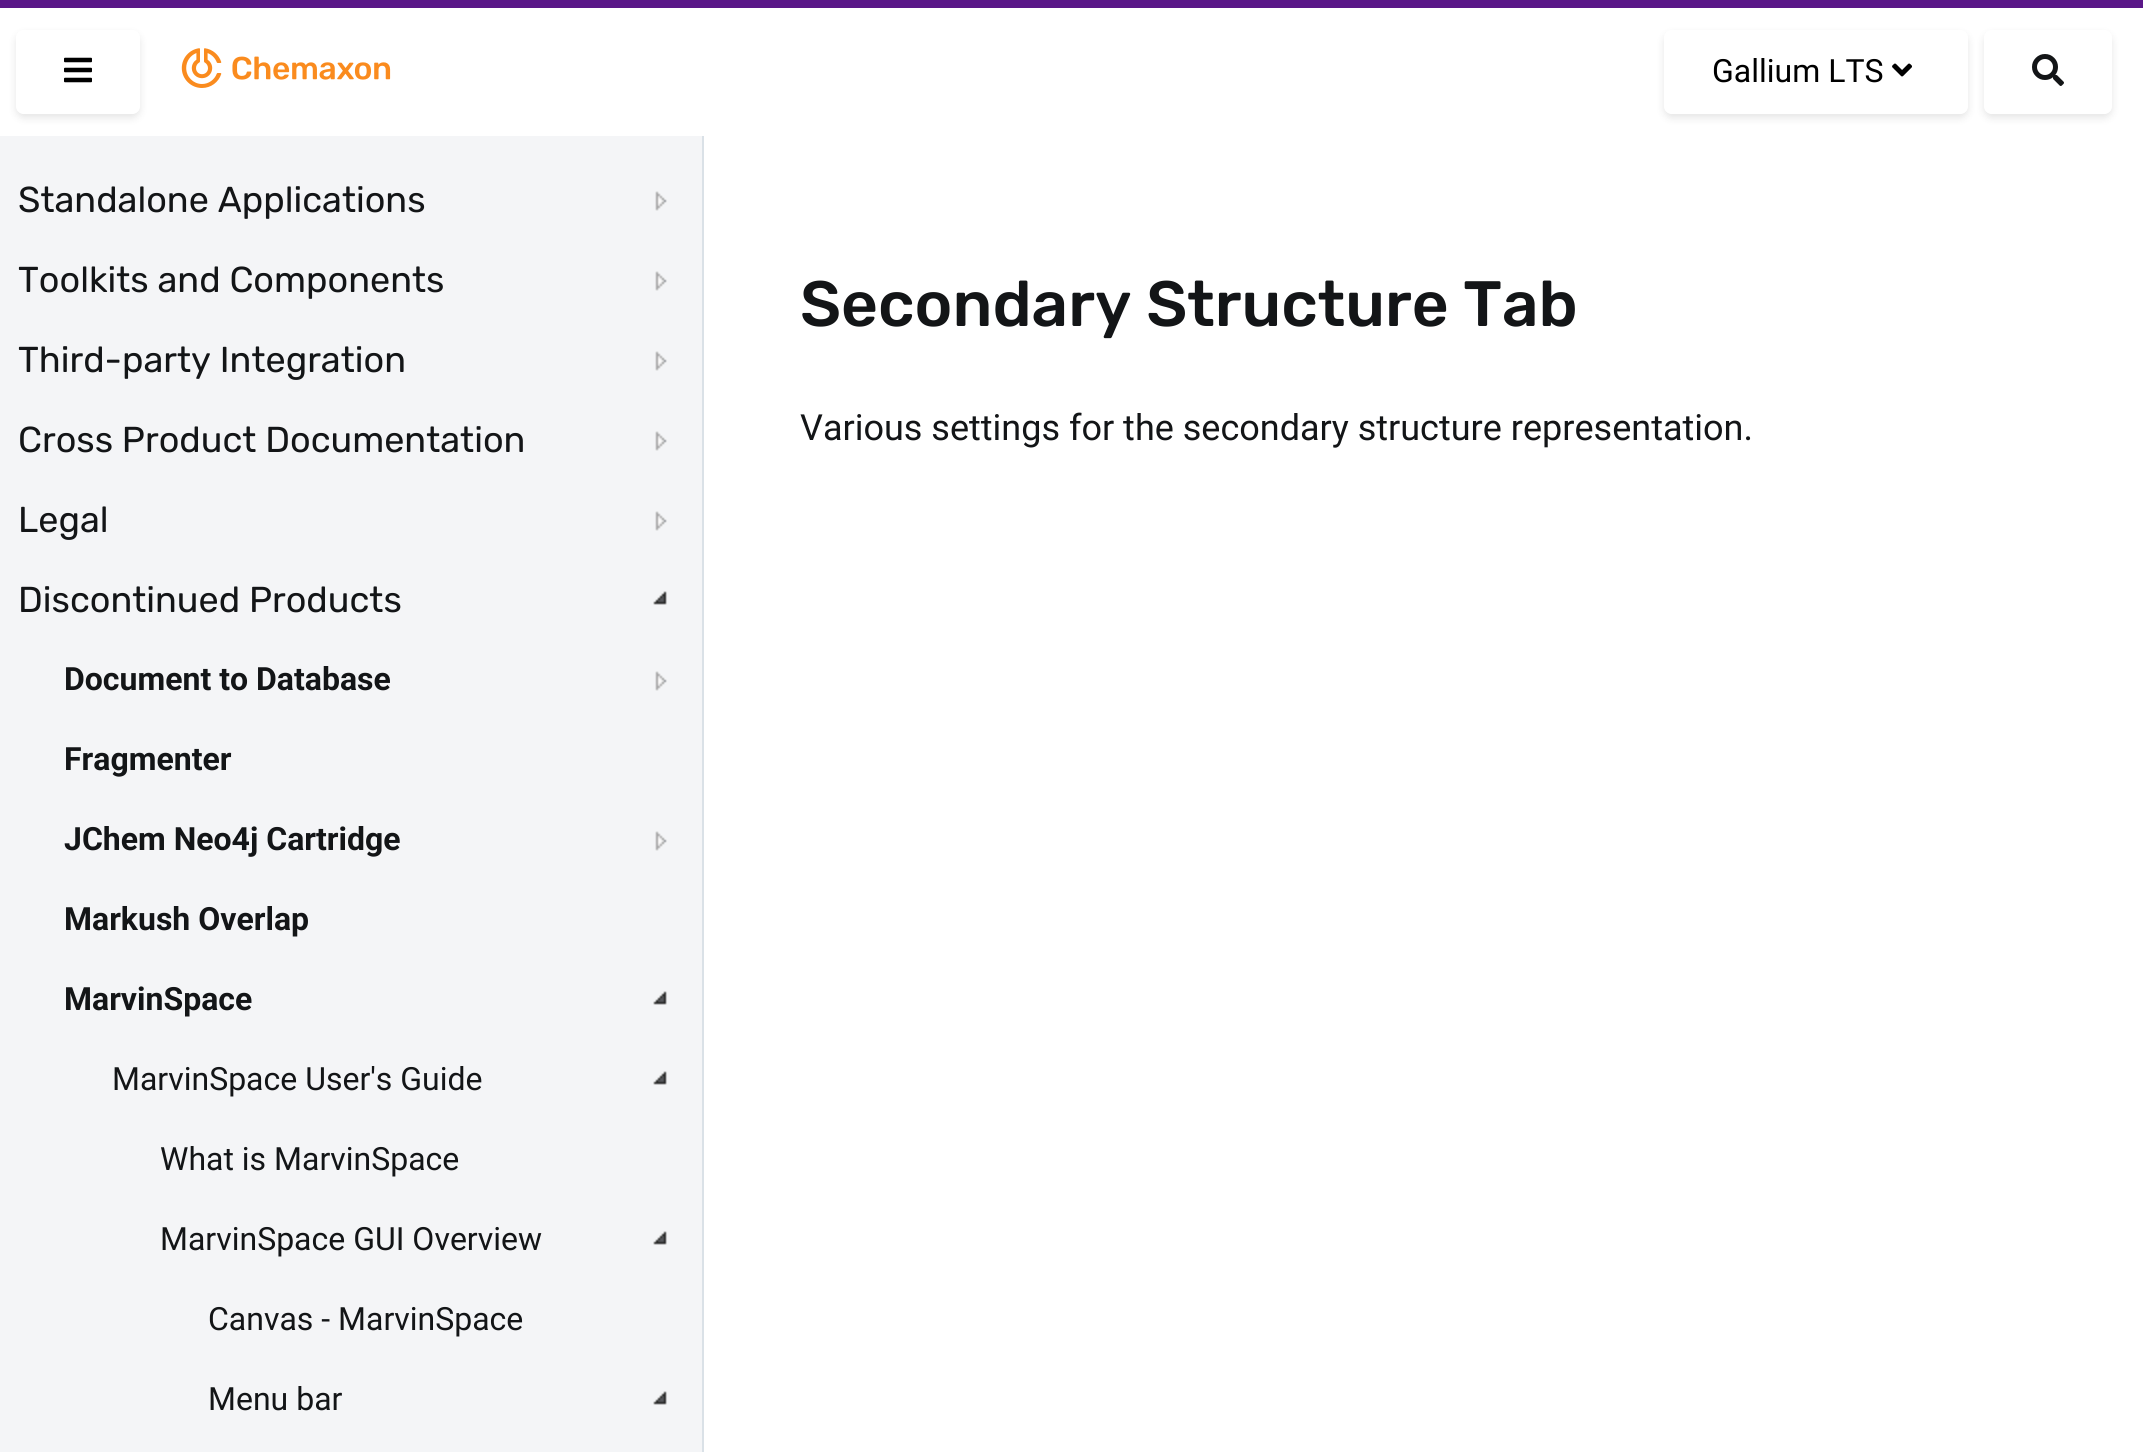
import math
import cairo


def use_color(cr, r, g, b):
  cr.set_source_rgb(r / 255, g / 255, b / 255)

def text(cr, x, y, s, family, size, color, bold=False, italic=False):
  cr.select_font_face(family, cairo.FONT_SLANT_ITALIC if italic else cairo.FONT_SLANT_NORMAL, cairo.FONT_WEIGHT_BOLD if bold else cairo.FONT_WEIGHT_NORMAL)
  cr.set_font_size(size)
  use_color(cr, *color)
  cr.move_to(x, y)
  cr.show_text(s)

def box(cr, x, y, w, h, *color):
  use_color(cr, *color)
  cr.rectangle(x, y, w, h)
  cr.fill()

def round_rect(cr, x, y, w, h, r):
  cr.new_sub_path()
  for i, (u, v) in enumerate([(x + w - r, y + h - r), (x + r, y + h - r), (x + r, y + r), (x + w - r, y + r)]):
    cr.arc(u, v, r, i * math.pi / 2, (i + 1) * math.pi / 2)
  cr.close_path()

def shadow(cr, x, y, w, h, r, blur, alpha):
  cr.push_group_with_content(cairo.CONTENT_ALPHA)
  cr.set_operator(cairo.OPERATOR_SOURCE)
  for i in range(15, -16, -2):
    e = blur * i / 6
    if min(w, h) + 2 * e > 0:
      cr.set_source_rgba(0, 0, 0, alpha * math.erfc((i - 1) / 8.5) / 2)
      round_rect(cr, x - e, y - e, w + 2 * e, h + 2 * e, max(0, min(r + e + blur * .6, min(w, h) / 2 + e)))
      cr.fill()
  cr.mask(cr.pop_group())

def picture(cr, path, x, y, w, h):
  cr.save()
  cr.set_source_surface(cairo.ImageSurface.create_from_png(path), x, y)
  cr.rectangle(x, y, w, h)
  cr.fill()
  cr.restore()

def draw(cr):
  use_color(cr, 255, 255, 255)
  cr.paint()
  box(cr, 0, 0, 2143, 8, 90, 23, 136)
  box(cr, 702, 128, 2, 1324, 218, 225, 231)
  box(cr, 702, 128, 2, 8, 255, 255, 255)
  cr.save()
  cr.set_fill_rule(cairo.FILL_RULE_EVEN_ODD)
  cr.new_path()
  cr.move_to(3, 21)
  cr.line_to(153, 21)
  cr.line_to(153, 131)
  cr.line_to(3, 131)
  cr.close_path()
  cr.move_to(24, 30)
  cr.line_to(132, 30)
  cr.curve_to(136.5, 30, 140, 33.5, 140, 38)
  cr.line_to(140, 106)
  cr.curve_to(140, 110.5, 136.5, 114, 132, 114)
  cr.line_to(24, 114)
  cr.curve_to(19.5, 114, 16, 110.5, 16, 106)
  cr.line_to(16, 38)
  cr.curve_to(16, 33.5, 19.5, 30, 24, 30)
  cr.close_path()
  cr.clip()
  use_color(cr, 0, 0, 0)
  shadow(cr, 16, 34, 124, 84, 8, 4, 0.1)
  cr.restore()
  picture(cr, "img_01.png", 64, 57, 28, 26)
  picture(cr, "img_02.png", 181, 48, 210, 40)
  cr.save()
  cr.set_fill_rule(cairo.FILL_RULE_EVEN_ODD)
  cr.new_path()
  cr.move_to(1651, 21)
  cr.line_to(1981, 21)
  cr.line_to(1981, 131)
  cr.line_to(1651, 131)
  cr.close_path()
  cr.move_to(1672, 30)
  cr.line_to(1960, 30)
  cr.curve_to(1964.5, 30, 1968, 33.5, 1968, 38)
  cr.line_to(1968, 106)
  cr.curve_to(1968, 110.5, 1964.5, 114, 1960, 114)
  cr.line_to(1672, 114)
  cr.curve_to(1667.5, 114, 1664, 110.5, 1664, 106)
  cr.line_to(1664, 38)
  cr.curve_to(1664, 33.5, 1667.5, 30, 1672, 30)
  cr.close_path()
  cr.clip()
  use_color(cr, 0, 0, 0)
  shadow(cr, 1664, 34, 304, 84, 8, 4, 0.1)
  cr.restore()
  picture(cr, "img_03.png", 1892, 63, 20, 14)
  cr.save()
  cr.set_fill_rule(cairo.FILL_RULE_EVEN_ODD)
  cr.new_path()
  cr.move_to(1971, 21)
  cr.line_to(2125, 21)
  cr.line_to(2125, 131)
  cr.line_to(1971, 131)
  cr.close_path()
  cr.move_to(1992, 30)
  cr.line_to(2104, 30)
  cr.curve_to(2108.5, 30, 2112, 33.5, 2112, 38)
  cr.line_to(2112, 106)
  cr.curve_to(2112, 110.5, 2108.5, 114, 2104, 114)
  cr.line_to(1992, 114)
  cr.curve_to(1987.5, 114, 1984, 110.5, 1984, 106)
  cr.line_to(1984, 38)
  cr.curve_to(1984, 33.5, 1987.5, 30, 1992, 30)
  cr.close_path()
  cr.clip()
  use_color(cr, 0, 0, 0)
  shadow(cr, 1984, 34, 128, 84, 8, 4, 0.1)
  cr.restore()
  picture(cr, "img_04.png", 2032, 54, 32, 32)
  box(cr, 0, 136, 702, 1316, 244, 245, 247)
  picture(cr, "img_05.png", 655, 191, 12, 20)
  picture(cr, "img_05.png", 655, 271, 12, 20)
  picture(cr, "img_05.png", 655, 351, 12, 20)
  picture(cr, "img_05.png", 655, 431, 12, 20)
  picture(cr, "img_05.png", 655, 511, 12, 20)
  picture(cr, "img_06.png", 653, 591, 14, 14)
  picture(cr, "img_05.png", 655, 671, 12, 20)
  picture(cr, "img_05.png", 655, 831, 12, 20)
  picture(cr, "img_06.png", 653, 991, 14, 14)
  picture(cr, "img_06.png", 653, 1071, 14, 14)
  picture(cr, "img_06.png", 653, 1231, 14, 14)
  picture(cr, "img_06.png", 653, 1391, 14, 14)
  text(cr, 1712, 82, "Gallium LTS", "Roboto", 32, (0, 0, 0))
  text(cr, 18, 212, "Standalone Applications", "Rubik", 36, (19, 21, 23))
  text(cr, 18, 292, "Toolkits and Components", "Rubik", 36, (19, 21, 23))
  text(cr, 18, 372, "Third-party Integration", "Rubik", 36, (19, 21, 23))
  text(cr, 18, 452, "Cross Product Documentation", "Rubik", 36, (19, 21, 23))
  text(cr, 18, 532, "Legal", "Rubik", 36, (19, 21, 23))
  text(cr, 18, 612, "Discontinued Products", "Rubik", 36, (19, 21, 23))
  text(cr, 64, 690, "Document to Database", "Roboto", 32, (19, 21, 23), bold=True)
  text(cr, 64, 770, "Fragmenter", "Roboto", 32, (19, 21, 23), bold=True)
  text(cr, 64, 850, "JChem Neo4j Cartridge", "Roboto", 32, (19, 21, 23), bold=True)
  text(cr, 64, 930, "Markush Overlap", "Roboto", 32, (19, 21, 23), bold=True)
  text(cr, 64, 1010, "MarvinSpace", "Roboto", 32, (19, 21, 23), bold=True)
  text(cr, 112, 1090, "MarvinSpace User's Guide", "Roboto", 32, (19, 21, 23))
  text(cr, 160, 1170, "What is MarvinSpace", "Roboto", 32, (19, 21, 23))
  text(cr, 160, 1250, "MarvinSpace GUI Overview", "Roboto", 32, (19, 21, 23))
  text(cr, 208, 1330, "Canvas - MarvinSpace", "Roboto", 32, (19, 21, 23))
  text(cr, 208, 1410, "Menu bar", "Roboto", 32, (19, 21, 23))
  text(cr, 800, 326, "Secondary Structure Tab", "Rubik Medium", 64, (19, 21, 23))
  text(cr, 800, 440, "Various settings for the secondary structure representation.", "Roboto", 36, (19, 21, 23))


surface = cairo.ImageSurface(cairo.FORMAT_RGB24, 2143, 1452)
cr = cairo.Context(surface)
options = cairo.FontOptions()
options.set_hint_metrics(cairo.HINT_METRICS_OFF)
options.set_hint_style(cairo.HINT_STYLE_NONE)
cr.set_font_options(options)
cr.set_miter_limit(4)
draw(cr)
surface.write_to_png("out.png")
